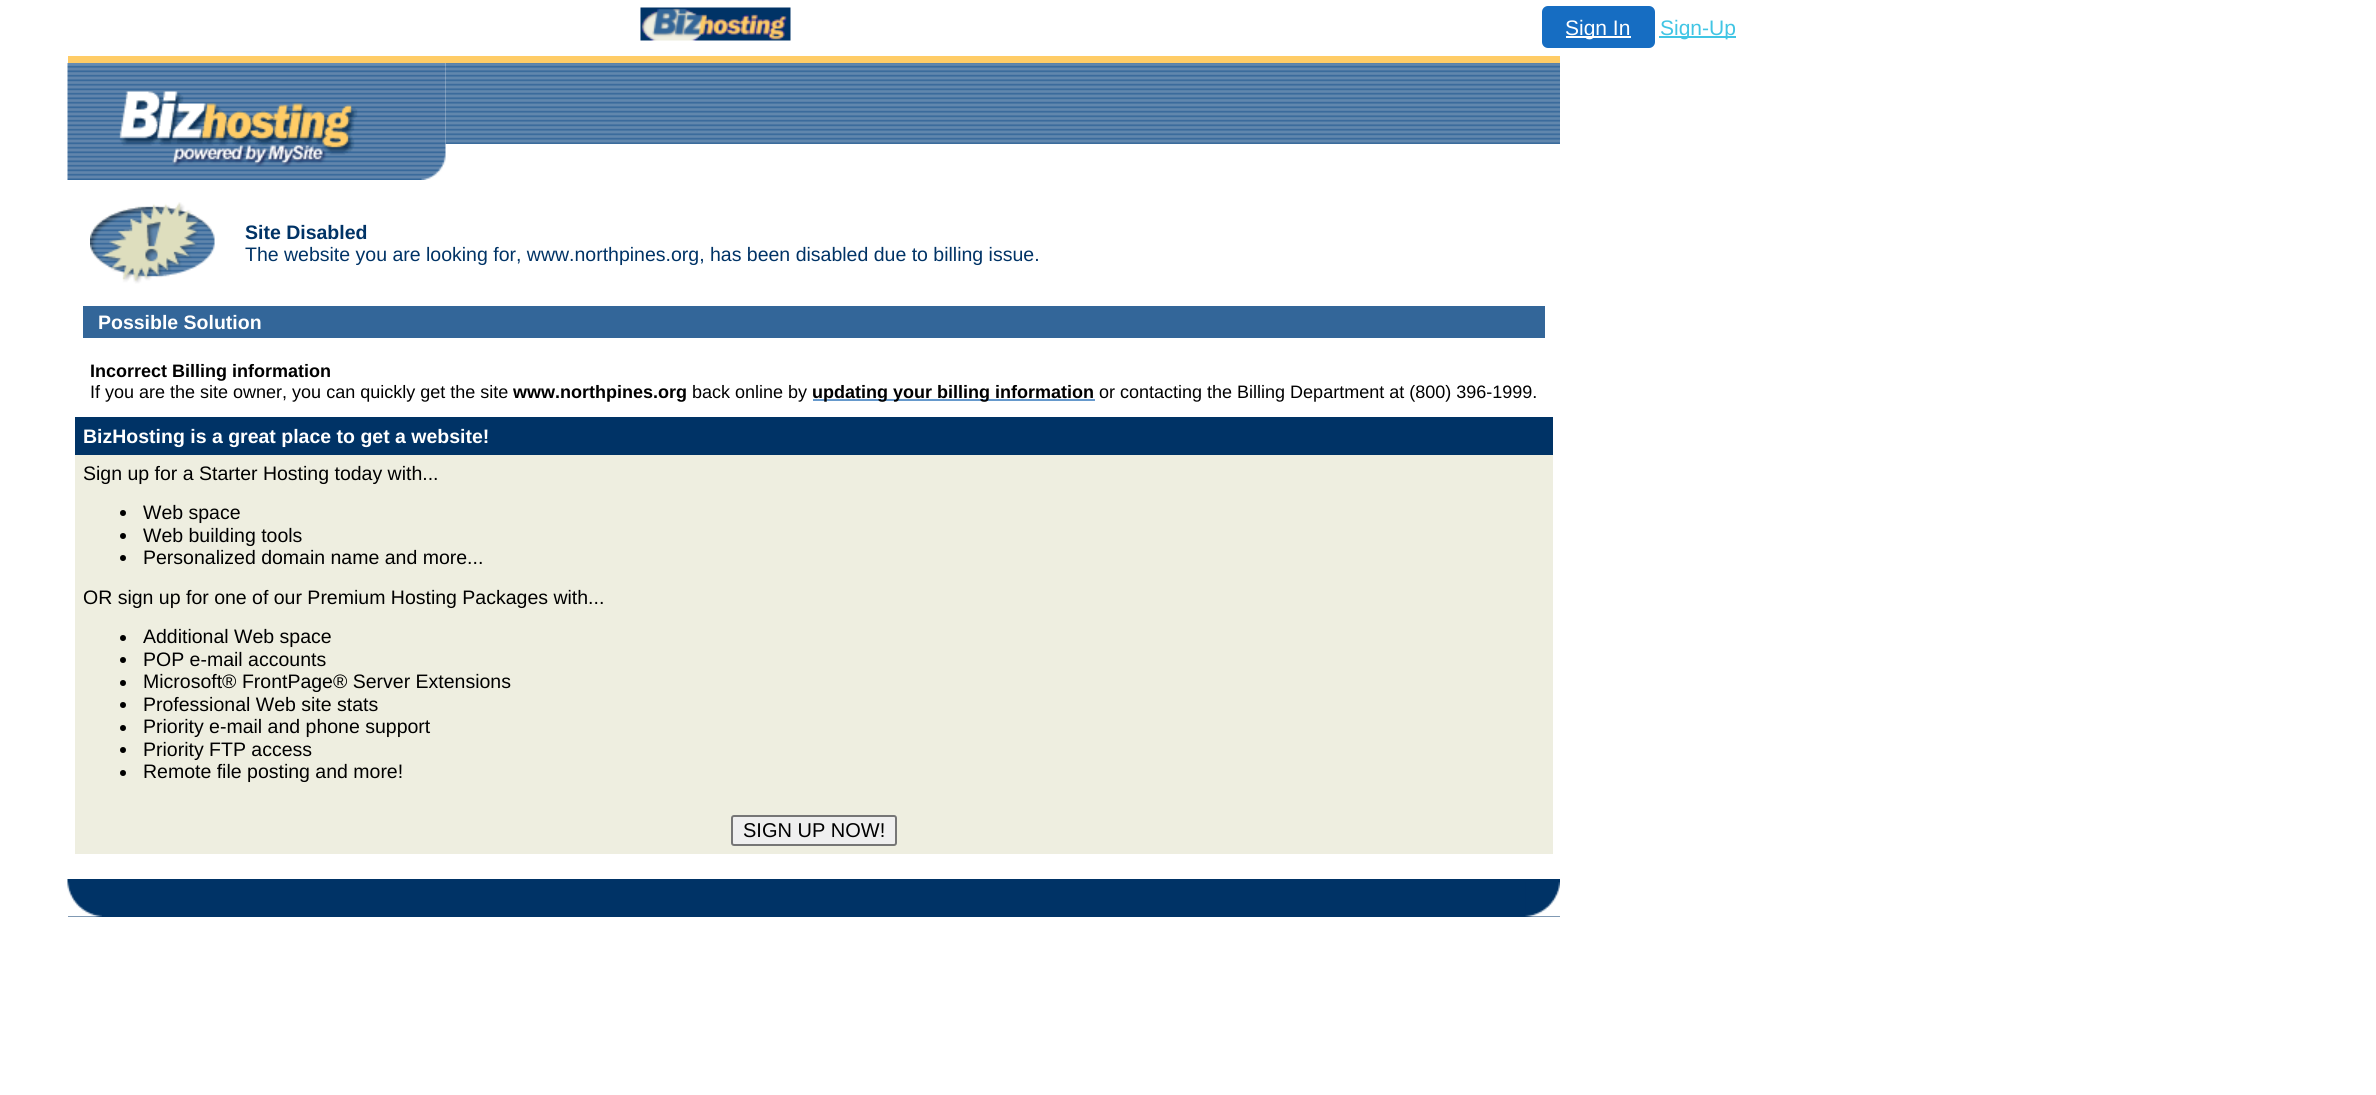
import math
import cairo


def use_color(cr, r, g, b):
  cr.set_source_rgb(r / 255, g / 255, b / 255)

def text(cr, x, y, s, family, size, color, bold=False, italic=False):
  cr.select_font_face(family, cairo.FONT_SLANT_ITALIC if italic else cairo.FONT_SLANT_NORMAL, cairo.FONT_WEIGHT_BOLD if bold else cairo.FONT_WEIGHT_NORMAL)
  cr.set_font_size(size)
  use_color(cr, *color)
  cr.move_to(x, y)
  cr.show_text(s)

def box(cr, x, y, w, h, *color):
  use_color(cr, *color)
  cr.rectangle(x, y, w, h)
  cr.fill()

def round_rect(cr, x, y, w, h, r):
  cr.new_sub_path()
  for i, (u, v) in enumerate([(x + w - r, y + h - r), (x + r, y + h - r), (x + r, y + r), (x + w - r, y + r)]):
    cr.arc(u, v, r, i * math.pi / 2, (i + 1) * math.pi / 2)
  cr.close_path()

def picture(cr, path, x, y, w, h):
  cr.save()
  cr.set_source_surface(cairo.ImageSurface.create_from_png(path), x, y)
  cr.rectangle(x, y, w, h)
  cr.fill()
  cr.restore()

def draw(cr):
  use_color(cr, 255, 255, 255)
  cr.paint()
  picture(cr, "img_01.png", 640, 7, 151, 34)
  use_color(cr, 22, 109, 194)
  round_rect(cr, 1543, 7, 111, 40, 5)
  cr.fill_preserve()
  cr.stroke()
  box(cr, 1566, 36, 65, 2, 255, 255, 255)
  box(cr, 1659, 36, 77, 2, 65, 197, 228)
  box(cr, 68, 56, 1492, 7, 255, 204, 102)
  picture(cr, "img_03.png", 445, 63, 1115, 81)
  picture(cr, "img_02.png", 67, 63, 379, 117)
  picture(cr, "img_04.png", 90, 202, 125, 82)
  box(cr, 83, 306, 1462, 32, 51, 102, 153)
  box(cr, 813, 399, 282, 2, 102, 153, 204)
  box(cr, 75, 417, 1478, 38, 0, 51, 102)
  box(cr, 75, 455, 1478, 399, 238, 238, 224)
  use_color(cr, 0, 0, 0)
  cr.arc(123, 513, 3, 0, 2 * math.pi)
  cr.fill()
  cr.arc(123, 536, 3, 0, 2 * math.pi)
  cr.fill()
  cr.arc(123, 558, 3, 0, 2 * math.pi)
  cr.fill()
  cr.arc(123, 638, 3, 0, 2 * math.pi)
  cr.fill()
  cr.arc(123, 660, 3, 0, 2 * math.pi)
  cr.fill()
  cr.arc(123, 683, 3, 0, 2 * math.pi)
  cr.fill()
  cr.arc(123, 705, 3, 0, 2 * math.pi)
  cr.fill()
  cr.arc(123, 728, 3, 0, 2 * math.pi)
  cr.fill()
  cr.arc(123, 750, 3, 0, 2 * math.pi)
  cr.fill()
  cr.arc(123, 773, 3, 0, 2 * math.pi)
  cr.fill()
  use_color(cr, 239, 239, 239)
  round_rect(cr, 732, 816, 164, 29, 2)
  cr.fill_preserve()
  use_color(cr, 118, 118, 118)
  cr.stroke()
  box(cr, 68, 879, 1492, 38, 0, 51, 102)
  picture(cr, "img_05.png", 67, 879, 35, 38)
  picture(cr, "img_06.png", 1525, 882, 35, 35)
  text(cr, 1565, 35, "Sign In", "Liberation Sans", 21, (255, 255, 255))
  text(cr, 1660, 35, "Sign-Up", "Liberation Sans", 21, (65, 197, 228))
  text(cr, 245, 239, "Site Disabled", "Liberation Sans", 19.5, (0, 51, 102), bold=True)
  text(cr, 245, 261, "The website you are looking for, www.northpines.org, has been disabled due to billing issue.", "Liberation Sans", 19.5, (0, 51, 102))
  text(cr, 98, 329, "Possible Solution", "Liberation Sans", 19.5, (255, 255, 255), bold=True)
  text(cr, 90, 377, "Incorrect Billing information", "Liberation Sans", 18, (0, 0, 0), bold=True)
  text(cr, 90, 398, "If you are the site owner, you can quickly get the site", "Liberation Sans", 18, (0, 0, 0))
  text(cr, 513, 398, "www.northpines.org", "Liberation Sans", 18, (0, 0, 0), bold=True)
  text(cr, 692, 398, "back online by", "Liberation Sans", 18, (0, 0, 0))
  text(cr, 812, 398, "updating your billing information", "Liberation Sans", 18, (0, 0, 0), bold=True)
  text(cr, 1099, 398, "or contacting the Billing Department at (800) 396-1999.", "Liberation Sans", 18, (0, 0, 0))
  text(cr, 83, 443, "BizHosting is a great place to get a website!", "Liberation Sans", 19.5, (255, 255, 255), bold=True)
  text(cr, 83, 480, "Sign up for a Starter Hosting today with...", "Liberation Sans", 19.5, (0, 0, 0))
  text(cr, 143, 519, "Web space", "Liberation Sans", 19.5, (0, 0, 0))
  text(cr, 143, 542, "Web building tools", "Liberation Sans", 19.5, (0, 0, 0))
  text(cr, 143, 564, "Personalized domain name and more...", "Liberation Sans", 19.5, (0, 0, 0))
  text(cr, 83, 604, "OR sign up for one of our Premium Hosting Packages with...", "Liberation Sans", 19.5, (0, 0, 0))
  text(cr, 143, 643, "Additional Web space", "Liberation Sans", 19.5, (0, 0, 0))
  text(cr, 143, 666, "POP e-mail accounts", "Liberation Sans", 19.5, (0, 0, 0))
  text(cr, 143, 688, "Microsoft® FrontPage® Server Extensions", "Liberation Sans", 19.5, (0, 0, 0))
  text(cr, 143, 711, "Professional Web site stats", "Liberation Sans", 19.5, (0, 0, 0))
  text(cr, 143, 733, "Priority e-mail and phone support", "Liberation Sans", 19.5, (0, 0, 0))
  text(cr, 143, 756, "Priority FTP access", "Liberation Sans", 19.5, (0, 0, 0))
  text(cr, 143, 778, "Remote file posting and more!", "Liberation Sans", 19.5, (0, 0, 0))
  text(cr, 743, 837, "SIGN UP NOW!", "Liberation Sans", 20, (0, 0, 0))


surface = cairo.ImageSurface(cairo.FORMAT_RGB24, 2376, 1095)
cr = cairo.Context(surface)
options = cairo.FontOptions()
options.set_hint_metrics(cairo.HINT_METRICS_OFF)
options.set_hint_style(cairo.HINT_STYLE_NONE)
cr.set_font_options(options)
cr.set_miter_limit(4)
draw(cr)
surface.write_to_png("out.png")
